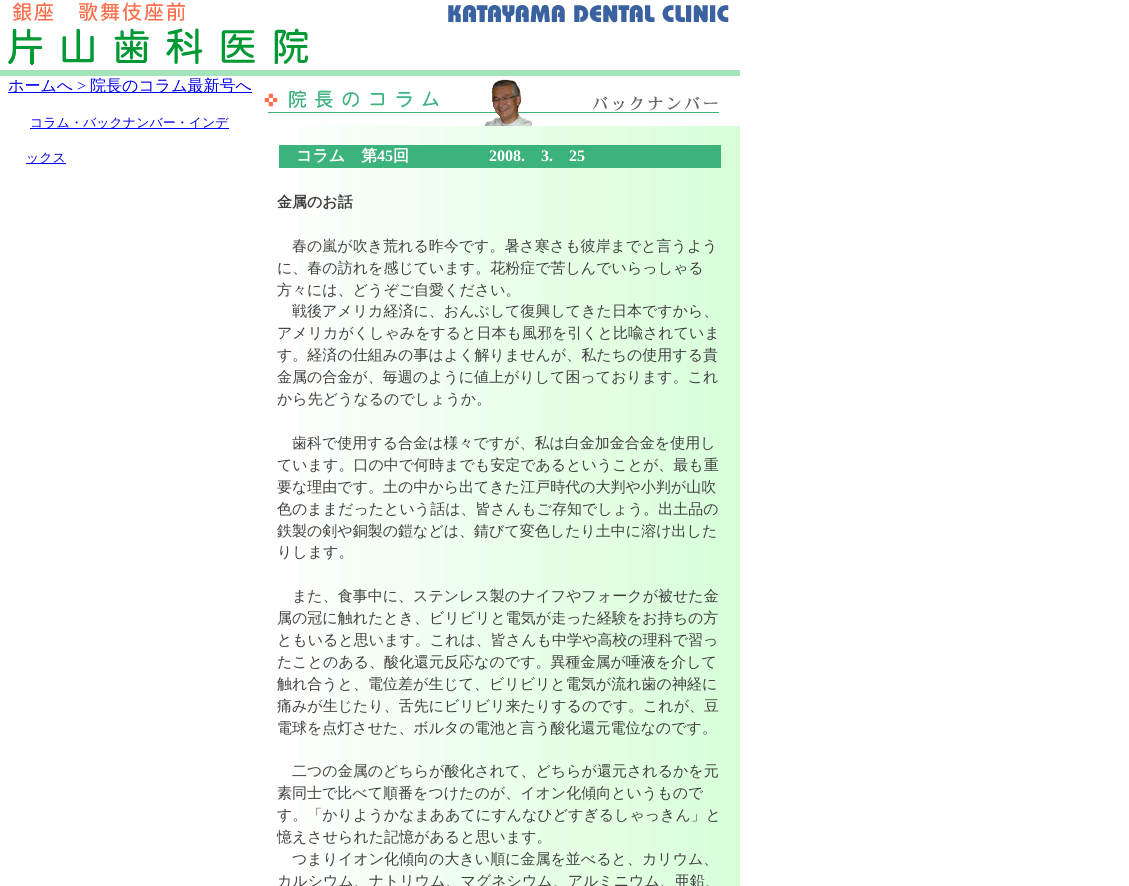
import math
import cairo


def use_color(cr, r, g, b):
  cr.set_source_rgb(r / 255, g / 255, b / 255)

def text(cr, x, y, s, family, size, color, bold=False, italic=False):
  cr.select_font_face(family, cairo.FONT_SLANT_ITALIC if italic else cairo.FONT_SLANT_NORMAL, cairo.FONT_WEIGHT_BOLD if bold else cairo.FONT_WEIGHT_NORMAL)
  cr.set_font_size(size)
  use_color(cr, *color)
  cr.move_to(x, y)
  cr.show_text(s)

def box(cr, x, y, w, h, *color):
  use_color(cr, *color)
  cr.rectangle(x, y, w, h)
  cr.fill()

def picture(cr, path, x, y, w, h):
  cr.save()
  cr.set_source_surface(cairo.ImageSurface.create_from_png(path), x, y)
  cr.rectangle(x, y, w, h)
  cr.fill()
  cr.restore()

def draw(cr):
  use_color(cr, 255, 255, 255)
  cr.paint()
  picture(cr, "img_01.png", 13, 2, 172, 19)
  picture(cr, "img_02.png", 448, 5, 281, 18)
  picture(cr, "img_03.png", 8, 28, 300, 37)
  box(cr, 0, 70, 740, 6, 163, 228, 187)
  box(cr, 8, 92, 244, 1, 0, 0, 238)
  box(cr, 30, 128, 199, 1, 0, 0, 238)
  box(cr, 26, 163, 40, 1, 0, 0, 238)
  picture(cr, "img_04.png", 264, 79, 455, 47)
  picture(cr, "img_05.png", 299, 126, 441, 760)
  box(cr, 279, 145, 442, 23, 60, 178, 125)
  text(cr, 8, 91, "ホームへ", "WenQuanYi Zen Hei Medium", 16, (0, 0, 238))
  text(cr, 77, 91, ">", "Liberation Serif", 16, (0, 0, 238))
  text(cr, 90, 91, "院長のコラム最新号へ", "WenQuanYi Zen Hei Medium", 16, (0, 0, 238))
  text(cr, 30, 127, "コラム・バックナンバー・インデ", "WenQuanYi Zen Hei Medium", 13, (0, 0, 238))
  text(cr, 26, 162, "ックス", "WenQuanYi Zen Hei Medium", 13, (0, 0, 238))
  text(cr, 296, 161, "コラム　第", "WenQuanYi Zen Hei", 16, (255, 255, 255), bold=True)
  text(cr, 377, 161, "45", "Liberation Serif", 16, (255, 255, 255), bold=True)
  text(cr, 393, 161, "回", "WenQuanYi Zen Hei", 16, (255, 255, 255), bold=True)
  text(cr, 489, 161, "2008.", "Liberation Serif", 16, (255, 255, 255), bold=True)
  text(cr, 541, 161, "3.", "Liberation Serif", 16, (255, 255, 255), bold=True)
  text(cr, 569, 161, "25", "Liberation Serif", 16, (255, 255, 255), bold=True)
  text(cr, 277, 207, "金属のお話", "WenQuanYi Zen Hei", 15, (64, 64, 64), bold=True)
  text(cr, 292, 251, "春の嵐が吹き荒れる昨今です。暑さ寒さも彼岸までと言うよう", "WenQuanYi Zen Hei Medium", 15, (64, 64, 64))
  text(cr, 277, 273, "に、春の訪れを感じています。花粉症で苦しんでいらっしゃる", "WenQuanYi Zen Hei Medium", 15, (64, 64, 64))
  text(cr, 277, 295, "方々には、どうぞご自愛ください。", "WenQuanYi Zen Hei Medium", 15, (64, 64, 64))
  text(cr, 292, 316, "戦後アメリカ経済に、おんぶして復興してきた日本ですから、", "WenQuanYi Zen Hei Medium", 15, (64, 64, 64))
  text(cr, 277, 338, "アメリカがくしゃみをすると日本も風邪を引くと比喩されていま", "WenQuanYi Zen Hei Medium", 15, (64, 64, 64))
  text(cr, 277, 360, "す。経済の仕組みの事はよく解りませんが、私たちの使用する貴", "WenQuanYi Zen Hei Medium", 15, (64, 64, 64))
  text(cr, 277, 382, "金属の合金が、毎週のように値上がりして困っております。これ", "WenQuanYi Zen Hei Medium", 15, (64, 64, 64))
  text(cr, 277, 404, "から先どうなるのでしょうか。", "WenQuanYi Zen Hei Medium", 15, (64, 64, 64))
  text(cr, 292, 448, "歯科で使用する合金は様々ですが、私は白金加金合金を使用し", "WenQuanYi Zen Hei Medium", 15, (64, 64, 64))
  text(cr, 277, 470, "ています。口の中で何時までも安定であるということが、最も重", "WenQuanYi Zen Hei Medium", 15, (64, 64, 64))
  text(cr, 277, 492, "要な理由です。土の中から出てきた江戸時代の大判や小判が山吹", "WenQuanYi Zen Hei Medium", 15, (64, 64, 64))
  text(cr, 277, 514, "色のままだったという話は、皆さんもご存知でしょう。出土品の", "WenQuanYi Zen Hei Medium", 15, (64, 64, 64))
  text(cr, 277, 536, "鉄製の剣や銅製の鎧などは、錆びて変色したり土中に溶け出した", "WenQuanYi Zen Hei Medium", 15, (64, 64, 64))
  text(cr, 277, 557, "りします。", "WenQuanYi Zen Hei Medium", 15, (64, 64, 64))
  text(cr, 292, 601, "また、食事中に、ステンレス製のナイフやフォークが被せた金", "WenQuanYi Zen Hei Medium", 15, (64, 64, 64))
  text(cr, 277, 623, "属の冠に触れたとき、ビリビリと電気が走った経験をお持ちの方", "WenQuanYi Zen Hei Medium", 15, (64, 64, 64))
  text(cr, 277, 645, "ともいると思います。これは、皆さんも中学や高校の理科で習っ", "WenQuanYi Zen Hei Medium", 15, (64, 64, 64))
  text(cr, 277, 667, "たことのある、酸化還元反応なのです。異種金属が唾液を介して", "WenQuanYi Zen Hei Medium", 15, (64, 64, 64))
  text(cr, 277, 689, "触れ合うと、電位差が生じて、ビリビリと電気が流れ歯の神経に", "WenQuanYi Zen Hei Medium", 15, (64, 64, 64))
  text(cr, 277, 711, "痛みが生じたり、舌先にビリビリ来たりするのです。これが、豆", "WenQuanYi Zen Hei Medium", 15, (64, 64, 64))
  text(cr, 277, 733, "電球を点灯させた、ボルタの電池と言う酸化還元電位なのです。", "WenQuanYi Zen Hei Medium", 15, (64, 64, 64))
  text(cr, 292, 776, "二つの金属のどちらが酸化されて、どちらが還元されるかを元", "WenQuanYi Zen Hei Medium", 15, (64, 64, 64))
  text(cr, 277, 798, "素同士で比べて順番をつけたのが、イオン化傾向というもので", "WenQuanYi Zen Hei Medium", 15, (64, 64, 64))
  text(cr, 277, 820, "す。「かりようかなまああてにすんなひどすぎるしゃっきん」と", "WenQuanYi Zen Hei Medium", 15, (64, 64, 64))
  text(cr, 277, 842, "憶えさせられた記憶があると思います。", "WenQuanYi Zen Hei Medium", 15, (64, 64, 64))
  text(cr, 292, 864, "つまりイオン化傾向の大きい順に金属を並べると、カリウム、", "WenQuanYi Zen Hei Medium", 15, (64, 64, 64))
  text(cr, 277, 886, "カルシウム、ナトリウム、マグネシウム、アルミニウム、亜鉛、", "WenQuanYi Zen Hei Medium", 15, (64, 64, 64))


surface = cairo.ImageSurface(cairo.FORMAT_RGB24, 1129, 886)
cr = cairo.Context(surface)
options = cairo.FontOptions()
options.set_hint_metrics(cairo.HINT_METRICS_OFF)
options.set_hint_style(cairo.HINT_STYLE_NONE)
cr.set_font_options(options)
cr.set_miter_limit(4)
draw(cr)
surface.write_to_png("out.png")
